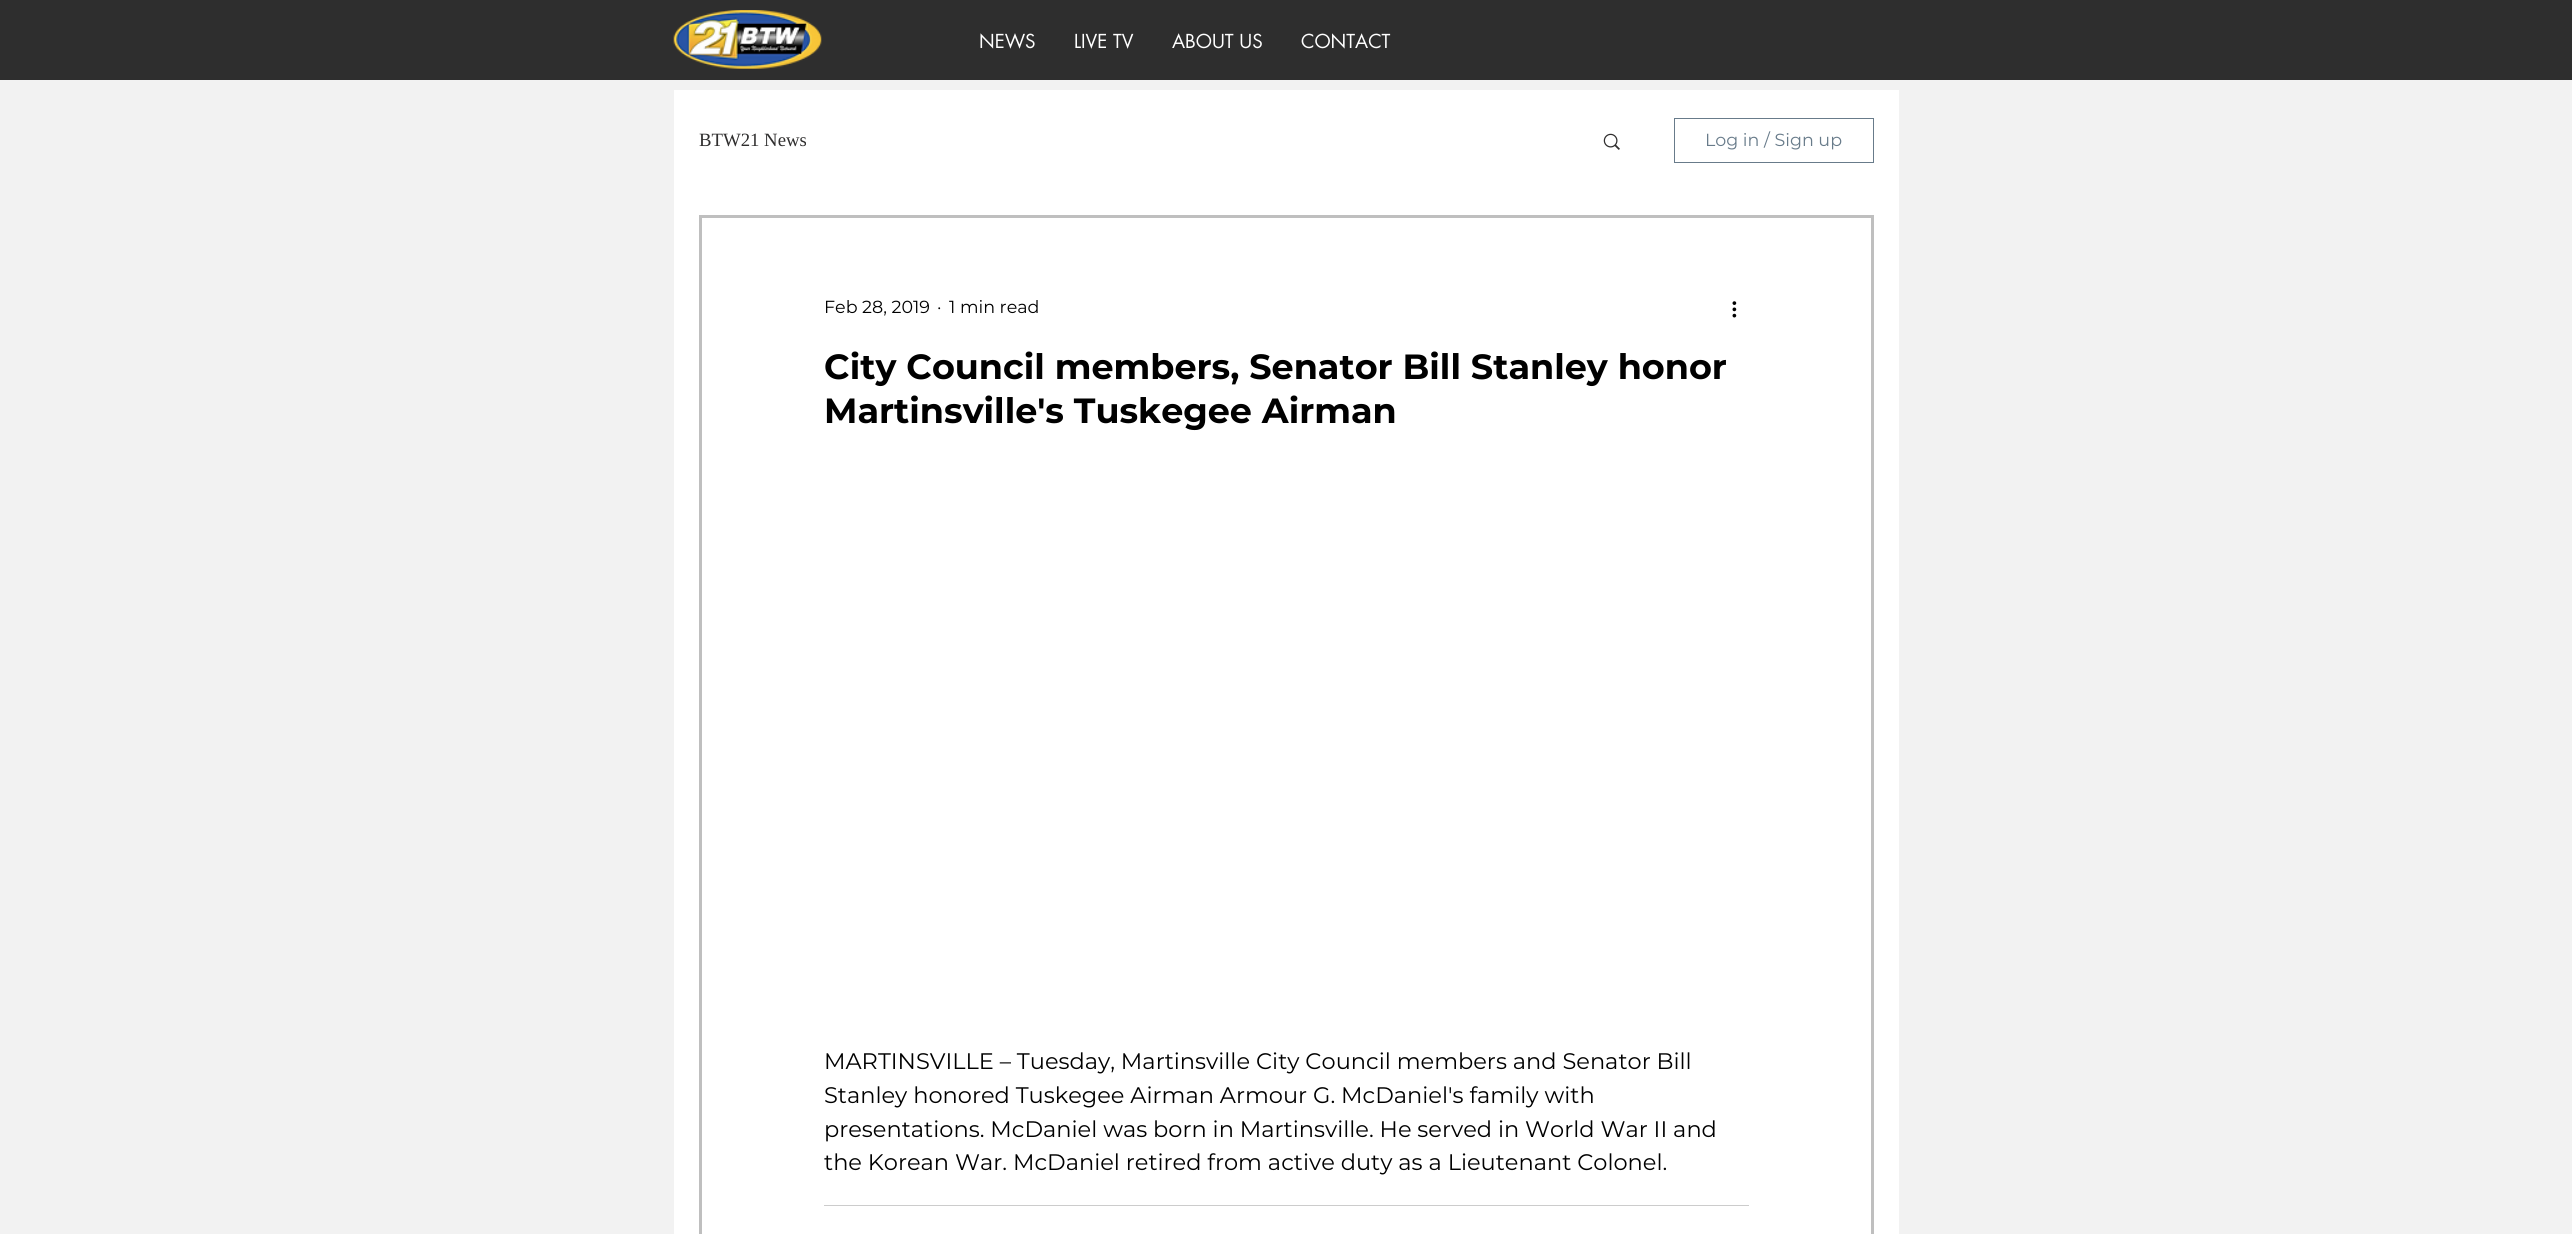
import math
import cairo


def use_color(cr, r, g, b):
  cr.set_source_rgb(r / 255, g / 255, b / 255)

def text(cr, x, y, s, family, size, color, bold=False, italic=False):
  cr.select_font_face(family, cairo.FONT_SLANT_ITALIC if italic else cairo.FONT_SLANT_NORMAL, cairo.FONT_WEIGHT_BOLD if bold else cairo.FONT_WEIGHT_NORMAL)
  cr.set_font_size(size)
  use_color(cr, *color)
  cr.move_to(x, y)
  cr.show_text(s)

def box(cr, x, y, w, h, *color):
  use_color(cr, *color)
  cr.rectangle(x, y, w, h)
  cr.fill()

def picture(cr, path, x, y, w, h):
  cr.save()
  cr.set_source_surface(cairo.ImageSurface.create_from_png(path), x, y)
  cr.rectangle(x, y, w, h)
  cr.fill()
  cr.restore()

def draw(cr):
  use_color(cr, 242, 242, 242)
  cr.paint()
  box(cr, 0, 0, 2572, 80, 46, 46, 46)
  picture(cr, "img_01.png", 673, 10, 149, 59)
  box(cr, 674, 90, 1225, 1144, 255, 255, 255)
  picture(cr, "img_02.png", 1603, 133, 17, 17)
  cr.rectangle(1674.5, 118.5, 199, 44)
  use_color(cr, 104, 123, 138)
  cr.set_line_width(1)
  cr.stroke()
  cr.rectangle(700.5, 216.5, 1172, 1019)
  use_color(cr, 191, 191, 191)
  cr.set_line_width(3)
  cr.stroke()
  picture(cr, "img_03.png", 1732, 301, 5, 17)
  box(cr, 824, 1205, 925, 1, 204, 204, 204)
  text(cr, 979, 48, "NEWS", "futura", 18.75, (255, 255, 255))
  text(cr, 1074, 48, "LIVE TV", "futura", 18.75, (255, 255, 255))
  text(cr, 1172, 48, "ABOUT US", "futura", 18.75, (255, 255, 255))
  text(cr, 1301, 48, "CONTACT", "futura", 18.75, (255, 255, 255))
  text(cr, 699, 146, "BTW21 News", "Liberation Serif", 18.75, (47, 46, 46))
  text(cr, 1705, 146, "Log in / Sign up", "Montserrat", 17.5, (104, 123, 138))
  text(cr, 824, 313, "Feb 28, 2019", "Montserrat", 17.5, (0, 0, 0))
  text(cr, 937, 313, "·", "Montserrat", 17.5, (0, 0, 0))
  text(cr, 949, 313, "1 min read", "Montserrat", 17.5, (0, 0, 0))
  text(cr, 824, 379, "City Council members, Senator Bill Stanley honor", "Montserrat", 35, (0, 0, 0), bold=True)
  text(cr, 824, 423, "Martinsville's Tuskegee Airman", "Montserrat", 35, (0, 0, 0), bold=True)
  text(cr, 824, 1069, "MARTINSVILLE – Tuesday, Martinsville City Council members and Senator Bill", "Montserrat", 22.5, (0, 0, 0))
  text(cr, 824, 1103, "Stanley honored Tuskegee Airman Armour G. McDaniel's family with", "Montserrat", 22.5, (0, 0, 0))
  text(cr, 824, 1137, "presentations. McDaniel was born in Martinsville. He served in World War II and", "Montserrat", 22.5, (0, 0, 0))
  text(cr, 824, 1170, "the Korean War. McDaniel retired from active duty as a Lieutenant Colonel.", "Montserrat", 22.5, (0, 0, 0))


surface = cairo.ImageSurface(cairo.FORMAT_RGB24, 2572, 1234)
cr = cairo.Context(surface)
options = cairo.FontOptions()
options.set_hint_metrics(cairo.HINT_METRICS_OFF)
options.set_hint_style(cairo.HINT_STYLE_NONE)
cr.set_font_options(options)
cr.set_miter_limit(4)
draw(cr)
surface.write_to_png("out.png")
